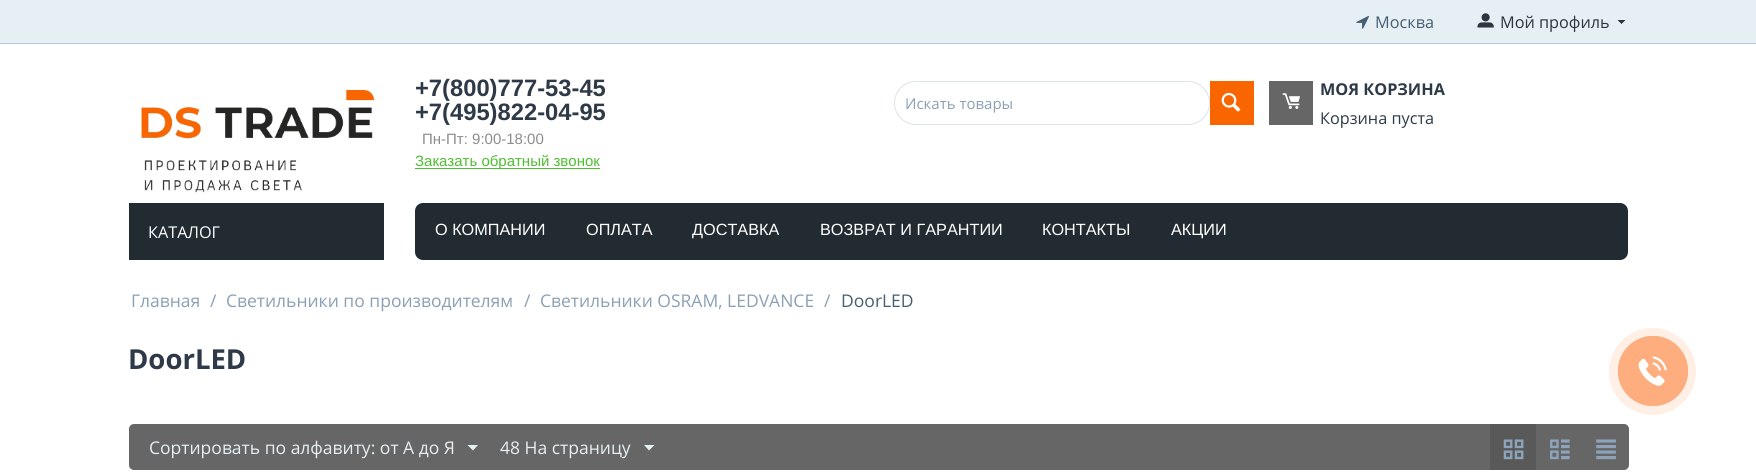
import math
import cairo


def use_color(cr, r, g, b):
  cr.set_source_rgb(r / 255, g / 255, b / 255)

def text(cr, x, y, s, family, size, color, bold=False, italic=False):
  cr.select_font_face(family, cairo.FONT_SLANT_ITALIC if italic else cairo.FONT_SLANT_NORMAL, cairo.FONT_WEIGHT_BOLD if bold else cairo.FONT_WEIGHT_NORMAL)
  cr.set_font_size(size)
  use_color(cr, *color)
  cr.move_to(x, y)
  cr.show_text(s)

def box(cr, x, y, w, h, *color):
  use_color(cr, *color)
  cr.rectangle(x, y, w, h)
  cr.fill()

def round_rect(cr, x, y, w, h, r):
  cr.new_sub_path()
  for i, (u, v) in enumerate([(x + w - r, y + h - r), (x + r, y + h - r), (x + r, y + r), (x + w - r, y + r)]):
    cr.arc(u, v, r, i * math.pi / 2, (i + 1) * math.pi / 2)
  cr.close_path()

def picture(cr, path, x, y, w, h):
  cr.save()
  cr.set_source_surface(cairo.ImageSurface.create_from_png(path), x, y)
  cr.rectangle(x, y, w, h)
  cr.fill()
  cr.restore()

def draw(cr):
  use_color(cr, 255, 255, 255)
  cr.paint()
  box(cr, 0, 0, 1756, 43, 230, 239, 244)
  box(cr, 0, 43, 1756, 1, 177, 205, 221)
  picture(cr, "img_01.png", 1356, 16, 13, 13)
  picture(cr, "img_02.png", 1477, 13, 17, 15)
  use_color(cr, 45, 53, 64)
  cr.new_path()
  cr.move_to(1621.5, 24)
  cr.line_to(1617.5, 20)
  cr.line_to(1625.5, 20)
  cr.close_path()
  cr.fill()
  picture(cr, "img_03.png", 141, 89, 234, 104)
  box(cr, 415, 168, 185, 1, 79, 190, 49)
  round_rect(cr, 894.5, 81.5, 315, 43, 21.5)
  use_color(cr, 220, 227, 234)
  cr.set_line_width(1)
  cr.stroke()
  box(cr, 1210, 81, 44, 44, 249, 102, 0)
  picture(cr, "img_04.png", 1221, 92, 20, 20)
  box(cr, 1269, 81, 44, 44, 102, 102, 102)
  picture(cr, "img_05.png", 1282, 93, 18, 16)
  box(cr, 129, 203, 255, 57, 34, 43, 50)
  round_rect(cr, 415, 203, 1213, 57, 8)
  cr.fill()
  use_color(cr, 102, 102, 102)
  round_rect(cr, 129, 424, 1500, 46, 5)
  cr.fill()
  use_color(cr, 230, 239, 244)
  cr.new_path()
  cr.move_to(473, 450.5)
  cr.line_to(467.5, 445)
  cr.line_to(478, 445)
  cr.close_path()
  cr.fill()
  cr.new_path()
  cr.move_to(649, 450.5)
  cr.line_to(644, 445)
  cr.line_to(654.5, 445)
  cr.close_path()
  cr.fill()
  box(cr, 1490, 424, 46, 46, 89, 89, 89)
  picture(cr, "img_06.png", 1503, 439, 21, 21)
  picture(cr, "img_07.png", 1550, 439, 20, 21)
  picture(cr, "img_08.png", 1596, 439, 20, 21)
  use_color(cr, 255, 239, 229)
  cr.arc(1652.5, 371.5, 43.5, 0, 2 * math.pi)
  cr.fill()
  cr.arc(1653, 371, 34.5, 0, 2 * math.pi)
  use_color(cr, 253, 173, 126)
  cr.stroke()
  cr.arc(1653, 371, 35, 0, 2 * math.pi)
  cr.fill()
  picture(cr, "img_09.png", 1638, 356, 29, 30)
  text(cr, 1375, 28, "Москва", "Open Sans", 16.25, (70, 95, 115))
  text(cr, 1500, 28, "Мой профиль", "Open Sans", 16.25, (45, 53, 64))
  text(cr, 415, 96, "+7(800)777-53-45", "Liberation Sans", 23.75, (46, 58, 71), bold=True)
  text(cr, 415, 120, "+7(495)822-04-95", "Liberation Sans", 23.75, (46, 58, 71), bold=True)
  text(cr, 422, 144, "Пн-Пт: 9:00-18:00", "Liberation Sans", 15, (141, 140, 140))
  text(cr, 415, 166, "Заказать обратный звонок", "Liberation Sans", 15, (79, 190, 49))
  text(cr, 905, 109, "Искать товары", "Open Sans", 15, (140, 160, 181))
  text(cr, 1320, 95, "МОЯ КОРЗИНА", "Open Sans", 16.25, (46, 58, 71), bold=True)
  text(cr, 1320, 124, "Корзина пуста", "Open Sans", 16.25, (46, 58, 71))
  text(cr, 148, 238, "КАТАЛОГ", "Open Sans", 16.25, (255, 255, 255))
  text(cr, 435, 235, "О КОМПАНИИ", "Liberation Sans", 16.25, (255, 255, 255))
  text(cr, 586, 235, "ОПЛАТА", "Liberation Sans", 16.25, (255, 255, 255))
  text(cr, 692, 235, "ДОСТАВКА", "Liberation Sans", 16.25, (255, 255, 255))
  text(cr, 820, 235, "ВОЗВРАТ И ГАРАНТИИ", "Liberation Sans", 16.25, (255, 255, 255))
  text(cr, 1042, 235, "КОНТАКТЫ", "Liberation Sans", 16.25, (255, 255, 255))
  text(cr, 1171, 235, "АКЦИИ", "Liberation Sans", 16.25, (255, 255, 255))
  text(cr, 131, 307, "Главная", "Open Sans", 17.5, (140, 160, 181))
  text(cr, 210, 307, "/", "Open Sans", 17.5, (140, 160, 181))
  text(cr, 226, 307, "Светильники по производителям", "Open Sans", 17.5, (140, 160, 181))
  text(cr, 524, 307, "/", "Open Sans", 17.5, (140, 160, 181))
  text(cr, 540, 307, "Светильники OSRAM, LEDVANCE", "Open Sans", 17.5, (140, 160, 181))
  text(cr, 824, 307, "/", "Open Sans", 17.5, (140, 160, 181))
  text(cr, 841, 307, "DoorLED", "Open Sans", 17.5, (70, 95, 115))
  text(cr, 128, 369, "DoorLED", "Open Sans", 27.5, (46, 58, 71), bold=True)
  text(cr, 149, 454, "Сортировать по алфавиту: от А до Я", "Open Sans", 17.5, (230, 239, 244))
  text(cr, 500, 454, "48 На страницу", "Open Sans", 17.5, (230, 239, 244))


surface = cairo.ImageSurface(cairo.FORMAT_RGB24, 1756, 474)
cr = cairo.Context(surface)
options = cairo.FontOptions()
options.set_hint_metrics(cairo.HINT_METRICS_OFF)
options.set_hint_style(cairo.HINT_STYLE_NONE)
cr.set_font_options(options)
cr.set_miter_limit(4)
draw(cr)
surface.write_to_png("out.png")
